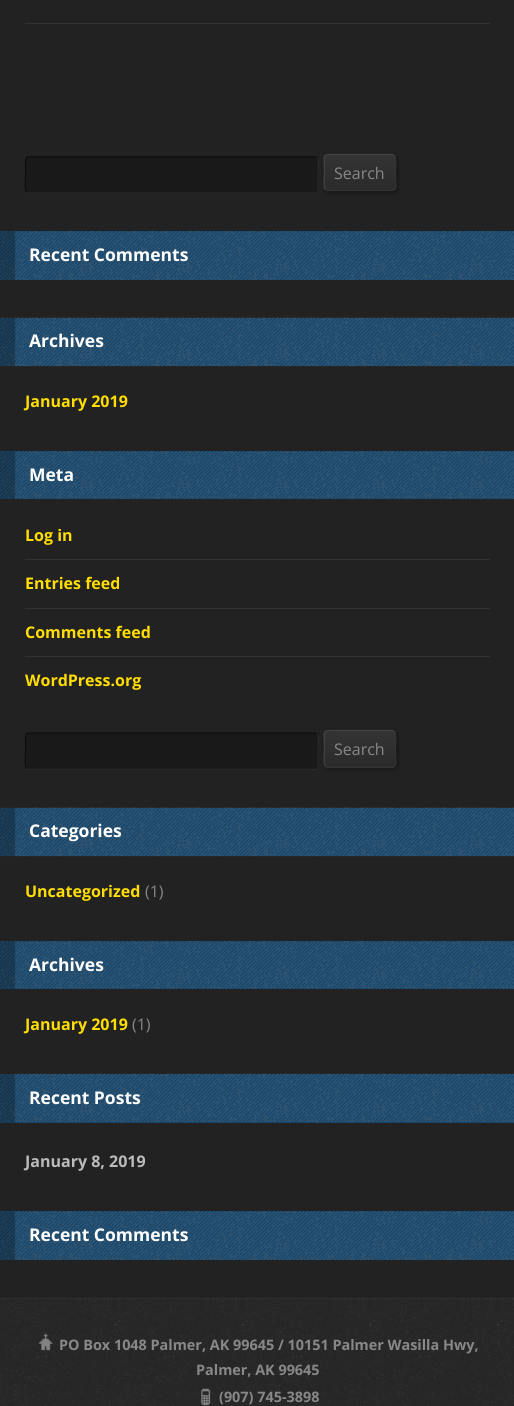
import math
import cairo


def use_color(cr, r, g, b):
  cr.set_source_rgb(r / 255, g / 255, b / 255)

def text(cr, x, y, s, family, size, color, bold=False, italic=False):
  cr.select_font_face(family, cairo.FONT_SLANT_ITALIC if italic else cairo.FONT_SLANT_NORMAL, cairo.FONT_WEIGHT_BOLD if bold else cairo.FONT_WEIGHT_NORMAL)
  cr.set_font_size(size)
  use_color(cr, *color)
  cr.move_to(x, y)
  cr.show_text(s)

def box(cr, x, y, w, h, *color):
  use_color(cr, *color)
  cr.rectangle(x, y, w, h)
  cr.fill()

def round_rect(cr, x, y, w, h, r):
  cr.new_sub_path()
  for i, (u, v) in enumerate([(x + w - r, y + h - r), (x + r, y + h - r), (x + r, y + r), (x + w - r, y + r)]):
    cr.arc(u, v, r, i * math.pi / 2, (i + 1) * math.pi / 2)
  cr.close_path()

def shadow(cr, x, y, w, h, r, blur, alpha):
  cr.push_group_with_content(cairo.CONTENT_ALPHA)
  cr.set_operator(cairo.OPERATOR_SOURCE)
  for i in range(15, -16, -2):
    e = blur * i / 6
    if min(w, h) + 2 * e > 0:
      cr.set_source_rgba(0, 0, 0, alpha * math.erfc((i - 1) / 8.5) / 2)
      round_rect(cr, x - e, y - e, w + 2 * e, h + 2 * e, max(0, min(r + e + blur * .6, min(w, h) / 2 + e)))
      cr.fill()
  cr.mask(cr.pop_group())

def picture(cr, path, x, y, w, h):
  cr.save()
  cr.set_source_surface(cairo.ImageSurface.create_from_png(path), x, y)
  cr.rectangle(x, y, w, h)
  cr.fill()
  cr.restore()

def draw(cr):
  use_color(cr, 34, 34, 34)
  cr.paint()
  box(cr, 25, 23, 465, 1, 51, 51, 51)
  use_color(cr, 25, 25, 25)
  round_rect(cr, 25, 156, 294, 38, 4)
  cr.fill()
  cr.new_path()
  cr.move_to(317, 158)
  cr.curve_to(319.5, 160, 318, 172, 318, 175)
  cr.line_to(318, 185)
  cr.curve_to(318, 187.5, 319, 193, 315, 193)
  cr.line_to(29, 193)
  cr.line_to(26.5, 192)
  use_color(cr, 41, 41, 41)
  cr.set_line_width(1.2)
  cr.stroke()
  cr.new_path()
  cr.move_to(26.5, 192)
  cr.curve_to(24.5, 190, 25.5, 178, 25.5, 175)
  cr.line_to(25.5, 165)
  cr.curve_to(25.5, 162.5, 24.5, 157, 29, 157)
  cr.line_to(315, 157)
  cr.line_to(317, 158)
  use_color(cr, 13, 13, 13)
  cr.stroke()
  use_color(cr, 0, 0, 0)
  shadow(cr, 325, 155, 73, 38, 4, 2, 0.4)
  use_color(cr, 51, 51, 51)
  round_rect(cr, 324, 154, 72, 37, 4)
  cr.fill()
  picture(cr, "img_01.png", 324, 154, 72, 37)
  cr.new_path()
  cr.move_to(394.5, 155.5)
  cr.curve_to(397, 157.5, 395.5, 169.5, 395.5, 172.5)
  cr.curve_to(395.5, 192, 400, 190.5, 381.5, 190.5)
  cr.line_to(327.5, 190.5)
  cr.line_to(325.5, 189.5)
  cr.stroke()
  cr.new_path()
  cr.move_to(325.5, 189.5)
  cr.curve_to(323, 187.5, 324.5, 175.5, 324.5, 172.5)
  cr.curve_to(324.5, 153, 320, 154.5, 338.5, 154.5)
  cr.line_to(392.5, 154.5)
  cr.line_to(394.5, 155.5)
  use_color(cr, 68, 68, 68)
  cr.stroke()
  box(cr, 0, 231, 514, 49, 12, 64, 105)
  picture(cr, "img_02.png", 0, 231, 514, 49)
  box(cr, 0, 318, 514, 48, 12, 64, 105)
  picture(cr, "img_03.png", 0, 317, 514, 50)
  box(cr, 0, 451, 514, 48, 12, 64, 105)
  picture(cr, "img_04.png", 0, 451, 514, 48)
  box(cr, 25, 559, 465, 1, 51, 51, 51)
  box(cr, 25, 608, 465, 1, 51, 51, 51)
  box(cr, 25, 656, 465, 1, 51, 51, 51)
  use_color(cr, 25, 25, 25)
  round_rect(cr, 25, 733, 294, 37, 4)
  cr.fill()
  cr.new_path()
  cr.move_to(317, 734)
  cr.curve_to(319.5, 736, 318, 748, 318, 751)
  cr.line_to(318, 761)
  cr.curve_to(318, 763.5, 319, 769.5, 315, 769.5)
  cr.line_to(29, 769.5)
  cr.line_to(26.5, 768.5)
  use_color(cr, 41, 41, 41)
  cr.stroke()
  cr.new_path()
  cr.move_to(26.5, 768.5)
  cr.curve_to(24.5, 766.5, 25.5, 754.5, 25.5, 751)
  cr.line_to(25.5, 741)
  cr.curve_to(25.5, 739, 24.5, 733, 29, 733)
  cr.line_to(315, 733)
  cr.line_to(317, 734)
  use_color(cr, 13, 13, 13)
  cr.stroke()
  use_color(cr, 0, 0, 0)
  shadow(cr, 325, 731, 73, 38, 4, 2, 0.4)
  use_color(cr, 51, 51, 51)
  round_rect(cr, 324, 730, 72, 38, 4)
  cr.fill()
  picture(cr, "img_05.png", 324, 730, 72, 37)
  cr.new_path()
  cr.move_to(394.5, 731.5)
  cr.curve_to(397, 733.5, 395.5, 745.5, 395.5, 749)
  cr.curve_to(395.5, 768.5, 400, 767, 381.5, 767)
  cr.line_to(327.5, 767)
  cr.line_to(325.5, 766)
  cr.stroke()
  cr.new_path()
  cr.move_to(325.5, 766)
  cr.curve_to(323, 764, 324.5, 752, 324.5, 749)
  cr.curve_to(324.5, 729, 320, 730.5, 338.5, 730.5)
  cr.line_to(392.5, 730.5)
  cr.line_to(394.5, 731.5)
  use_color(cr, 68, 68, 68)
  cr.stroke()
  box(cr, 0, 808, 514, 48, 12, 64, 105)
  picture(cr, "img_03.png", 0, 807, 514, 50)
  box(cr, 0, 941, 514, 48, 12, 64, 105)
  picture(cr, "img_04.png", 0, 941, 514, 48)
  box(cr, 0, 1074, 514, 49, 12, 64, 105)
  picture(cr, "img_06.png", 0, 1073, 514, 50)
  box(cr, 0, 1211, 514, 49, 12, 64, 105)
  picture(cr, "img_02.png", 0, 1211, 514, 49)
  picture(cr, "img_07.png", 0, 1297, 514, 109)
  cr.set_source_rgba(1, 1, 1, 0.03)
  cr.rectangle(0, 1298, 514, 1)
  cr.fill()
  picture(cr, "img_08.png", 38, 1333, 15, 18)
  picture(cr, "img_09.png", 201, 1388, 10, 18)
  text(cr, 334, 179, "Search", "Open Sans", 16, (136, 136, 136))
  text(cr, 29, 261, "Recent Comments", "Open Sans", 17.5, (255, 255, 255), bold=True)
  text(cr, 29, 347, "Archives", "Open Sans", 17.5, (255, 255, 255), bold=True)
  text(cr, 25, 407, "January 2019", "Open Sans", 16, (255, 221, 0), bold=True)
  text(cr, 29, 481, "Meta", "Open Sans", 17.5, (255, 255, 255), bold=True)
  text(cr, 25, 541, "Log in", "Open Sans", 16, (255, 221, 0), bold=True)
  text(cr, 25, 589, "Entries feed", "Open Sans", 16, (255, 221, 0), bold=True)
  text(cr, 25, 638, "Comments feed", "Open Sans", 16, (255, 221, 0), bold=True)
  text(cr, 25, 686, "WordPress.org", "Open Sans", 16, (255, 221, 0), bold=True)
  text(cr, 334, 755, "Search", "Open Sans", 16, (136, 136, 136))
  text(cr, 29, 837, "Categories", "Open Sans", 17.5, (255, 255, 255), bold=True)
  text(cr, 25, 897, "Uncategorized", "Open Sans", 16, (255, 221, 0), bold=True)
  text(cr, 145, 897, "(1)", "Open Sans", 16, (136, 136, 136))
  text(cr, 29, 971, "Archives", "Open Sans", 17.5, (255, 255, 255), bold=True)
  text(cr, 25, 1030, "January 2019", "Open Sans", 16, (255, 221, 0), bold=True)
  text(cr, 132, 1030, "(1)", "Open Sans", 16, (136, 136, 136))
  text(cr, 29, 1104, "Recent Posts", "Open Sans", 17.5, (255, 255, 255), bold=True)
  text(cr, 25, 1167, "January 8, 2019", "Open Sans", 16, (187, 187, 187), bold=True)
  text(cr, 29, 1241, "Recent Comments", "Open Sans", 17.5, (255, 255, 255), bold=True)
  text(cr, 59, 1350, "PO Box 1048 Palmer, AK 99645 / 10151 Palmer Wasilla Hwy,", "Open Sans", 14.4, (136, 136, 136), bold=True)
  text(cr, 196, 1375, "Palmer, AK 99645", "Open Sans", 14.4, (136, 136, 136), bold=True)
  text(cr, 219, 1402, "(907) 745-3898", "Open Sans", 14.4, (136, 136, 136), bold=True)


surface = cairo.ImageSurface(cairo.FORMAT_RGB24, 514, 1406)
cr = cairo.Context(surface)
options = cairo.FontOptions()
options.set_hint_metrics(cairo.HINT_METRICS_OFF)
options.set_hint_style(cairo.HINT_STYLE_NONE)
cr.set_font_options(options)
cr.set_miter_limit(4)
draw(cr)
surface.write_to_png("out.png")
